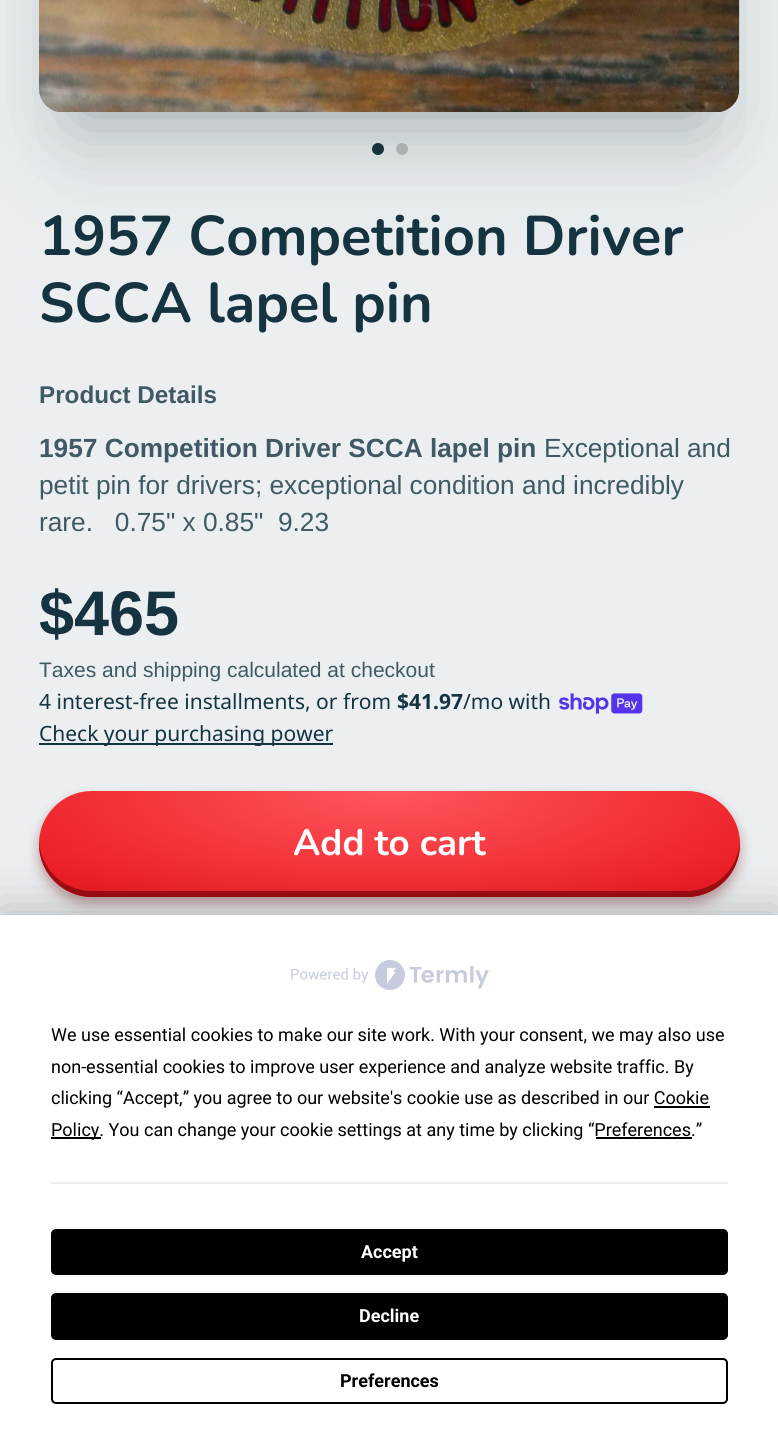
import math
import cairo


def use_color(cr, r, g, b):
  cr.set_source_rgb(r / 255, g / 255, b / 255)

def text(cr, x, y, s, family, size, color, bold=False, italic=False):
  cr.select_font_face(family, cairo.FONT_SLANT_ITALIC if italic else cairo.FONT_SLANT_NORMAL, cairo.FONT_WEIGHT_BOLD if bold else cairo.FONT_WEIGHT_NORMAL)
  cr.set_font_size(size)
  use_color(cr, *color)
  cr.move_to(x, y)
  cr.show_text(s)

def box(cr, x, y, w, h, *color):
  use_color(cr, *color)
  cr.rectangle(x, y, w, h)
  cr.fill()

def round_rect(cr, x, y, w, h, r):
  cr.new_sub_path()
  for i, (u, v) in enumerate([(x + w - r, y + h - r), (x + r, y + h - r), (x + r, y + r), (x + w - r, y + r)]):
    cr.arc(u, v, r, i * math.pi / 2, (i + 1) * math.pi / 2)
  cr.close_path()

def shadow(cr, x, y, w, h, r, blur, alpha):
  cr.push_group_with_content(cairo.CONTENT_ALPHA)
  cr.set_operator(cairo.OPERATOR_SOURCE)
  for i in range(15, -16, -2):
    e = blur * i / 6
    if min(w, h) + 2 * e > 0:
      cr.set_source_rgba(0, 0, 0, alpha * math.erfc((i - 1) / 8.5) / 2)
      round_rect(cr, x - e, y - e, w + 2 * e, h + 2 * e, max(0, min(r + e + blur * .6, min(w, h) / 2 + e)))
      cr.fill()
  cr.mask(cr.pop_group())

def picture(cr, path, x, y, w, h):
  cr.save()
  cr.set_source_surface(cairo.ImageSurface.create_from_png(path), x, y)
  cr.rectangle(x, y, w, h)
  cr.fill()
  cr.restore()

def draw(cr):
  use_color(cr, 235, 239, 241)
  cr.paint()
  use_color(cr, 22, 51, 64)
  cr.arc(378, 149, 6, 0, 2 * math.pi)
  cr.fill()
  use_color(cr, 188, 191, 193)
  cr.arc(402, 149, 6, 0, 2 * math.pi)
  cr.fill()
  use_color(cr, 15, 36, 45)
  shadow(cr, 78, -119, 623, 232, 0, 39.5, 0.3)
  shadow(cr, 66, -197, 648, 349, 0, 65.5, 0.1)
  picture(cr, "img_01.png", 39, 0, 701, 112)
  picture(cr, "img_02.png", 559, 693, 84, 21)
  box(cr, 39, 743, 294, 2, 22, 51, 64)
  use_color(cr, 102, 9, 12)
  shadow(cr, 45, 807, 689, 96, 48, 11, 0.15)
  shadow(cr, 39, 797, 701, 106, 53, 5.5, 0.3)
  cr.save()
  round_rect(cr, 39, 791, 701, 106, 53)
  cr.clip()
  shadow(cr, 45, 807, 689, 96, 48, 11, 0.15)
  shadow(cr, 39, 797, 701, 106, 53, 5.5, 0.3)
  cr.restore()
  gradient = cairo.RadialGradient(0, 0, 0, 0, 0, 1)
  gradient.set_matrix(cairo.Matrix(1 / 495, 0, 0, 1 / 151, -1 * 389 / 495, -1 * 791 / 151))
  gradient.add_color_stop_rgba(0, 1, 0.337, 0.361, 1)
  gradient.add_color_stop_rgba(0.9, 0.925, 0.11, 0.141, 1)
  cr.set_source(gradient)
  round_rect(cr, 39, 791, 701, 106, 53)
  cr.fill()
  use_color(cr, 159, 13, 19)
  cr.new_path()
  cr.move_to(39, 841)
  cr.line_to(39, 844)
  cr.curve_to(39, 873, 63, 897, 92, 897)
  cr.line_to(687, 897)
  cr.curve_to(716, 897, 740, 873, 740, 844)
  cr.line_to(740, 841)
  cr.curve_to(738, 870, 715, 891, 686, 891)
  cr.line_to(92, 891)
  cr.curve_to(64, 891, 41, 870, 39, 841)
  cr.close_path()
  cr.fill()
  use_color(cr, 0, 0, 0)
  shadow(cr, 0, 915, 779, 534, 0, 26, 0.25)
  box(cr, 0, 915, 778, 534, 255, 255, 255)
  picture(cr, "img_03.png", 291, 960, 198, 30)
  box(cr, 654, 1106, 56, 2, 0, 0, 0)
  box(cr, 51, 1137, 50, 2, 0, 0, 0)
  box(cr, 596, 1137, 96, 2, 0, 0, 0)
  box(cr, 51, 1182, 677, 2, 237, 237, 239)
  use_color(cr, 0, 0, 0)
  round_rect(cr, 52, 1230, 675, 44, 4)
  cr.fill_preserve()
  cr.stroke()
  round_rect(cr, 52, 1294, 675, 45, 4)
  cr.fill_preserve()
  cr.stroke()
  round_rect(cr, 52, 1359, 675, 44, 4)
  cr.stroke()
  text(cr, 39, 255, "1957 Competition Driver", "Nunito", 55.9, (22, 51, 64), bold=True)
  text(cr, 39, 322, "SCCA lapel pin", "Nunito", 55.9, (22, 51, 64), bold=True)
  text(cr, 39, 403, "Product Details", "Liberation Sans", 24.25, (65, 89, 99), bold=True)
  text(cr, 39, 457, "1957 Competition Driver SCCA lapel pin", "Liberation Sans", 26.25, (65, 89, 99), bold=True)
  text(cr, 544, 457, "Exceptional and", "Liberation Sans", 26.25, (65, 89, 99))
  text(cr, 39, 494, "petit pin for drivers; exceptional condition and incredibly", "Liberation Sans", 26.25, (65, 89, 99))
  text(cr, 39, 531, "rare.   0.75\" x 0.85\"  9.23", "Liberation Sans", 26.25, (65, 89, 99))
  text(cr, 39, 635, "$465", "Liberation Sans", 63, (22, 51, 64), bold=True)
  text(cr, 39, 677, "Taxes and shipping calculated at checkout", "Liberation Sans", 21, (65, 89, 99))
  text(cr, 39, 709, "4 interest-free installments, or from", "Noto Sans", 21, (22, 51, 64))
  text(cr, 397, 709, "$41.97", "Noto Sans", 21, (22, 51, 64), bold=True)
  text(cr, 463, 709, "/mo with", "Noto Sans", 21, (22, 51, 64))
  text(cr, 39, 741, "Check your purchasing power", "Noto Sans", 21, (22, 51, 64))
  text(cr, 293, 855, "Add to cart", "Nunito", 36.75, (255, 255, 255), bold=True)
  text(cr, 51, 1041, "We use essential cookies to make our site work. With your consent, we may also use", "Roboto", 18, (0, 0, 0))
  text(cr, 51, 1073, "non-essential cookies to improve user experience and analyze website traffic. By", "Roboto", 18, (0, 0, 0))
  text(cr, 51, 1104, "clicking “Accept,” you agree to our website's cookie use as described in our Cookie", "Roboto", 18, (0, 0, 0))
  text(cr, 51, 1136, "Policy. You can change your cookie settings at any time by clicking “Preferences.”", "Roboto", 18, (0, 0, 0))
  text(cr, 361, 1258, "Accept", "Roboto", 18, (255, 255, 255), bold=True)
  text(cr, 359, 1322, "Decline", "Roboto", 18, (255, 255, 255), bold=True)
  text(cr, 340, 1387, "Preferences", "Roboto", 18, (0, 0, 0), bold=True)


surface = cairo.ImageSurface(cairo.FORMAT_RGB24, 778, 1449)
cr = cairo.Context(surface)
options = cairo.FontOptions()
options.set_hint_metrics(cairo.HINT_METRICS_OFF)
options.set_hint_style(cairo.HINT_STYLE_NONE)
cr.set_font_options(options)
cr.set_miter_limit(4)
draw(cr)
surface.write_to_png("out.png")
